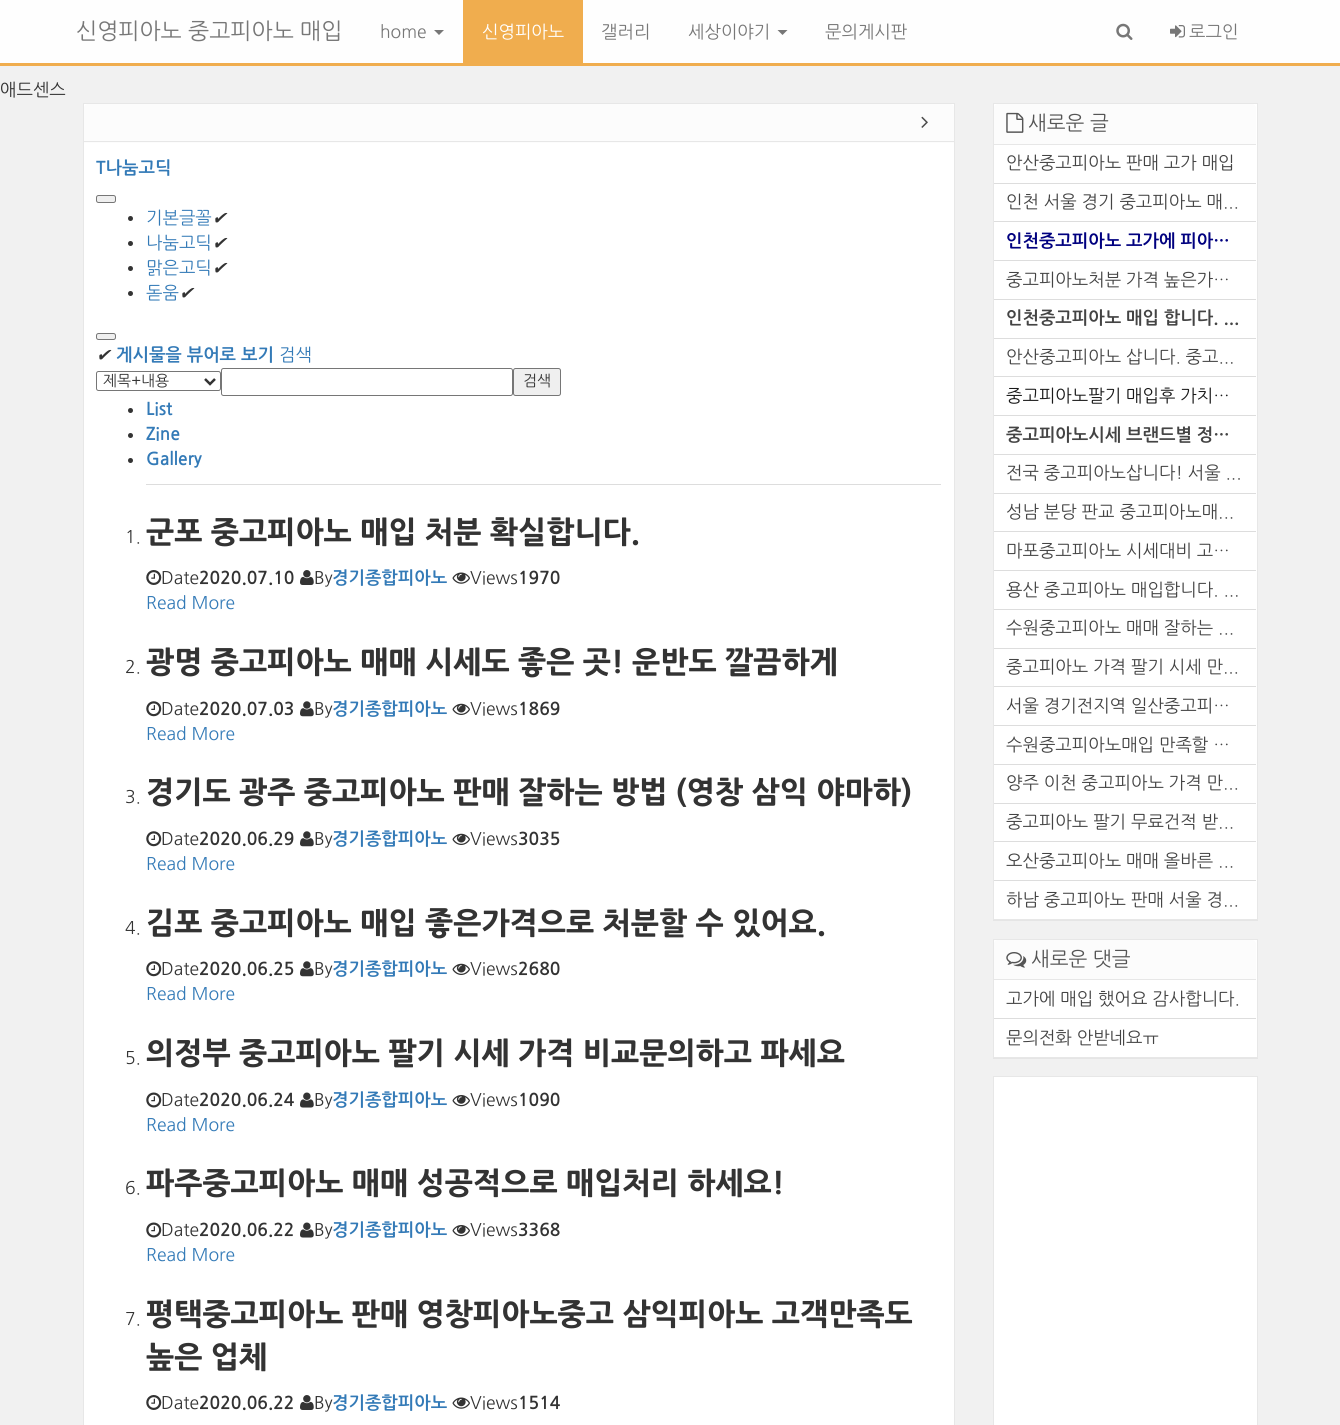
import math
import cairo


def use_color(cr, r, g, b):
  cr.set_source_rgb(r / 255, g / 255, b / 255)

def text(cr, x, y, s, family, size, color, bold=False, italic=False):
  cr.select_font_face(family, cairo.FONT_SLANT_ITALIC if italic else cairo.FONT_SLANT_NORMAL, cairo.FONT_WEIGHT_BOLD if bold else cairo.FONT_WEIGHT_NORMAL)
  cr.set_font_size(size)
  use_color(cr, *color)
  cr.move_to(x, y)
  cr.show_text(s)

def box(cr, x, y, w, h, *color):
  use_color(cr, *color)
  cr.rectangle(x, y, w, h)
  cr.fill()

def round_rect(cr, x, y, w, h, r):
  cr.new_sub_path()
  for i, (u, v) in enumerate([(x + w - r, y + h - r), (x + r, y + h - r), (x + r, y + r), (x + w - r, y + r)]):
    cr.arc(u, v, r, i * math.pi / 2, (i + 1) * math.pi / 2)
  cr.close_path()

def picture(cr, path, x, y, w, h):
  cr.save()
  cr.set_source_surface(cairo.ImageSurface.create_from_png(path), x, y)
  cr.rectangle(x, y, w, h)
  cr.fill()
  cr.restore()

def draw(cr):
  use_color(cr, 241, 241, 241)
  cr.paint()
  box(cr, 0, 0, 1340, 63, 254, 254, 254)
  box(cr, 0, 63, 1340, 3, 240, 173, 78)
  use_color(cr, 119, 119, 119)
  cr.new_path()
  cr.move_to(434, 30)
  cr.line_to(444, 30)
  cr.line_to(439, 35)
  cr.close_path()
  cr.fill()
  box(cr, 463, 0, 120, 63, 240, 173, 78)
  use_color(cr, 119, 119, 119)
  cr.new_path()
  cr.move_to(777.5, 30)
  cr.line_to(787.5, 30)
  cr.line_to(782.5, 35)
  cr.close_path()
  cr.fill()
  picture(cr, "img_01.png", 1116, 23, 17, 17)
  picture(cr, "img_02.png", 1170, 25, 15, 13)
  use_color(cr, 255, 255, 255)
  cr.rectangle(83.5, 103.5, 871, 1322)
  cr.fill_preserve()
  use_color(cr, 231, 231, 231)
  cr.set_line_width(1)
  cr.stroke()
  use_color(cr, 252, 252, 252)
  cr.new_path()
  cr.move_to(88, 104)
  cr.line_to(950, 104)
  cr.curve_to(952, 104, 954, 106, 954, 108)
  cr.line_to(954, 143)
  cr.line_to(84, 143)
  cr.line_to(84, 108)
  cr.curve_to(84, 106, 86, 104, 88, 104)
  cr.close_path()
  cr.fill()
  box(cr, 84, 141, 870, 1, 231, 231, 231)
  picture(cr, "img_03.png", 921, 116, 7, 12)
  use_color(cr, 239, 239, 239)
  round_rect(cr, 96.5, 195.5, 19, 7, 2)
  cr.fill_preserve()
  use_color(cr, 118, 118, 118)
  cr.stroke()
  use_color(cr, 51, 51, 51)
  cr.arc(130.5, 218.5, 2.5, 0, 2 * math.pi)
  cr.fill()
  cr.arc(130.5, 243.5, 2.5, 0, 2 * math.pi)
  cr.fill()
  cr.arc(130.5, 268.5, 2.5, 0, 2 * math.pi)
  cr.fill()
  cr.arc(130.5, 293.5, 2.5, 0, 2 * math.pi)
  cr.fill()
  use_color(cr, 239, 239, 239)
  round_rect(cr, 96.5, 333.5, 19, 6, 2)
  cr.fill_preserve()
  use_color(cr, 118, 118, 118)
  cr.stroke()
  round_rect(cr, 96.5, 371.5, 124, 19, 2)
  cr.stroke()
  cr.new_path()
  cr.move_to(205, 379)
  cr.line_to(210, 384)
  cr.line_to(215, 379)
  use_color(cr, 51, 51, 51)
  cr.set_line_width(2.5)
  cr.stroke()
  round_rect(cr, 221.5, 368.5, 291, 27, 2)
  use_color(cr, 118, 118, 118)
  cr.set_line_width(1)
  cr.stroke()
  use_color(cr, 239, 239, 239)
  round_rect(cr, 513.5, 368.5, 47, 27, 2)
  cr.fill_preserve()
  use_color(cr, 118, 118, 118)
  cr.stroke()
  use_color(cr, 51, 51, 51)
  cr.arc(130.5, 410.5, 2.5, 0, 2 * math.pi)
  cr.fill()
  cr.arc(130.5, 435.5, 2.5, 0, 2 * math.pi)
  cr.fill()
  cr.arc(130.5, 460.5, 2.5, 0, 2 * math.pi)
  cr.fill()
  box(cr, 146, 484, 795, 1, 221, 221, 221)
  picture(cr, "img_04.png", 146, 570, 16, 15)
  picture(cr, "img_05.png", 300, 570, 14, 15)
  picture(cr, "img_06.png", 452, 572, 18, 12)
  picture(cr, "img_07.png", 146, 701, 16, 16)
  picture(cr, "img_08.png", 300, 701, 14, 16)
  picture(cr, "img_09.png", 452, 703, 18, 12)
  picture(cr, "img_07.png", 146, 831, 16, 16)
  picture(cr, "img_08.png", 300, 831, 14, 16)
  picture(cr, "img_09.png", 452, 833, 18, 12)
  picture(cr, "img_07.png", 146, 961, 16, 16)
  picture(cr, "img_08.png", 300, 961, 14, 16)
  picture(cr, "img_09.png", 452, 963, 18, 12)
  picture(cr, "img_10.png", 146, 1092, 16, 16)
  picture(cr, "img_11.png", 300, 1092, 14, 16)
  picture(cr, "img_12.png", 452, 1095, 18, 12)
  picture(cr, "img_10.png", 146, 1222, 16, 16)
  picture(cr, "img_11.png", 300, 1222, 14, 16)
  picture(cr, "img_12.png", 452, 1225, 18, 12)
  picture(cr, "img_04.png", 146, 1395, 16, 15)
  picture(cr, "img_05.png", 300, 1395, 14, 15)
  picture(cr, "img_06.png", 452, 1397, 18, 12)
  use_color(cr, 229, 229, 229)
  cr.new_path()
  cr.move_to(993, 920)
  cr.line_to(993, 921)
  cr.line_to(1258, 921)
  cr.line_to(1258, 104)
  cr.line_to(1258, 920)
  cr.close_path()
  cr.fill()
  use_color(cr, 255, 255, 255)
  cr.rectangle(993.5, 103.5, 264, 816)
  cr.fill_preserve()
  use_color(cr, 231, 231, 231)
  cr.stroke()
  use_color(cr, 252, 252, 252)
  cr.new_path()
  cr.move_to(998, 104)
  cr.line_to(1252, 104)
  cr.curve_to(1254, 104, 1256, 106, 1256, 108)
  cr.line_to(1256, 145)
  cr.line_to(994, 145)
  cr.line_to(994, 108)
  cr.curve_to(994, 106, 996, 104, 998, 104)
  cr.close_path()
  cr.fill()
  box(cr, 994, 144, 262, 1, 231, 231, 231)
  picture(cr, "img_13.png", 1006, 112, 18, 21)
  box(cr, 994, 183, 262, 1, 221, 221, 221)
  box(cr, 994, 221, 262, 1, 221, 221, 221)
  box(cr, 994, 260, 262, 1, 221, 221, 221)
  box(cr, 994, 299, 262, 1, 221, 221, 221)
  box(cr, 994, 338, 262, 1, 221, 221, 221)
  box(cr, 994, 376, 262, 1, 221, 221, 221)
  box(cr, 994, 415, 262, 1, 221, 221, 221)
  box(cr, 994, 454, 262, 1, 221, 221, 221)
  box(cr, 994, 493, 262, 1, 221, 221, 221)
  box(cr, 994, 531, 262, 1, 221, 221, 221)
  box(cr, 994, 570, 262, 1, 221, 221, 221)
  box(cr, 994, 609, 262, 1, 221, 221, 221)
  box(cr, 994, 648, 262, 1, 221, 221, 221)
  box(cr, 994, 686, 262, 1, 221, 221, 221)
  box(cr, 994, 725, 262, 1, 221, 221, 221)
  box(cr, 994, 764, 262, 1, 221, 221, 221)
  box(cr, 994, 803, 262, 1, 221, 221, 221)
  box(cr, 994, 841, 262, 1, 221, 221, 221)
  box(cr, 994, 880, 262, 1, 221, 221, 221)
  use_color(cr, 229, 229, 229)
  cr.new_path()
  cr.move_to(993, 1058)
  cr.line_to(993, 1059)
  cr.line_to(1258, 1059)
  cr.line_to(1258, 940)
  cr.line_to(1258, 1058)
  cr.close_path()
  cr.fill()
  use_color(cr, 255, 255, 255)
  cr.rectangle(993.5, 939.5, 264, 118)
  cr.fill_preserve()
  use_color(cr, 231, 231, 231)
  cr.stroke()
  use_color(cr, 252, 252, 252)
  cr.new_path()
  cr.move_to(998, 940)
  cr.line_to(1252, 940)
  cr.curve_to(1254, 940, 1256, 942, 1256, 944)
  cr.line_to(1256, 980)
  cr.line_to(994, 980)
  cr.line_to(994, 944)
  cr.curve_to(994, 942, 996, 940, 998, 940)
  cr.close_path()
  cr.fill()
  box(cr, 994, 979, 262, 1, 231, 231, 231)
  picture(cr, "img_14.png", 1006, 952, 21, 16)
  box(cr, 994, 1018, 262, 1, 221, 221, 221)
  use_color(cr, 255, 255, 255)
  cr.rectangle(993.5, 1076.5, 264, 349)
  cr.fill_preserve()
  use_color(cr, 231, 231, 231)
  cr.stroke()
  text(cr, 76, 39, "신영피아노 중고피아노 매입", "NanumGothic", 22.5, (119, 119, 119))
  text(cr, 380, 38, "home", "NanumGothic", 17.5, (119, 119, 119))
  text(cr, 482, 38, "신영피아노", "NanumGothic", 17.5, (255, 255, 255))
  text(cr, 601, 38, "갤러리", "NanumGothic", 17.5, (119, 119, 119))
  text(cr, 688, 38, "세상이야기", "NanumGothic", 17.5, (119, 119, 119))
  text(cr, 825, 38, "문의게시판", "NanumGothic", 17.5, (119, 119, 119))
  text(cr, 1189, 38, "로그인", "NanumGothic", 17.5, (119, 119, 119))
  text(cr, 0, 96, "애드센스", "NanumGothic", 17.5, (51, 51, 51))
  text(cr, 96, 174, "T나눔고딕", "NanumGothic", 17.5, (51, 122, 183), bold=True)
  text(cr, 146, 224, "기본글꼴", "NanumGothic", 17.5, (51, 122, 183))
  text(cr, 212, 224, "✔", "DejaVu Sans", 17.5, (51, 51, 51), italic=True)
  text(cr, 146, 249, "나눔고딕", "NanumGothic", 17.5, (51, 122, 183))
  text(cr, 212, 249, "✔", "DejaVu Sans", 17.5, (51, 51, 51), italic=True)
  text(cr, 146, 274, "맑은고딕", "NanumGothic", 17.5, (51, 122, 183))
  text(cr, 212, 274, "✔", "DejaVu Sans", 17.5, (51, 51, 51), italic=True)
  text(cr, 146, 299, "돋움", "NanumGothic", 17.5, (51, 122, 183))
  text(cr, 179, 299, "✔", "DejaVu Sans", 17.5, (51, 51, 51), italic=True)
  text(cr, 96, 361, "✔", "DejaVu Sans", 17.5, (51, 51, 51), italic=True)
  text(cr, 116, 361, "게시물을 뷰어로 보기", "NanumGothic", 17.5, (51, 122, 183), bold=True)
  text(cr, 279, 361, "검색", "NanumGothic", 17.5, (51, 122, 183))
  text(cr, 103, 386, "제목+내용", "NanumGothic", 15, (51, 51, 51))
  text(cr, 523, 386, "검색", "NanumGothic", 15, (51, 51, 51))
  text(cr, 146, 415, "List", "NanumGothic", 17.5, (51, 122, 183), bold=True)
  text(cr, 146, 440, "Zine", "NanumGothic", 17.5, (51, 122, 183), bold=True)
  text(cr, 146, 465, "Gallery", "NanumGothic", 17.5, (51, 122, 183), bold=True)
  text(cr, 125, 543, "1.", "NanumGothic", 17.5, (51, 51, 51))
  text(cr, 146, 543, "군포 중고피아노 매입 처분 확실합니다.", "NanumGothic ExtraBold", 30, (51, 51, 51))
  text(cr, 161, 584, "Date", "NanumGothic", 17.5, (51, 51, 51))
  text(cr, 199, 584, "2020.07.10", "NanumGothic", 17.5, (51, 51, 51), bold=True)
  text(cr, 314, 584, "By", "NanumGothic", 17.5, (51, 51, 51))
  text(cr, 332, 584, "경기종합피아노", "NanumGothic", 17.5, (51, 122, 183), bold=True)
  text(cr, 470, 584, "Views", "NanumGothic", 17.5, (51, 51, 51))
  text(cr, 518, 584, "1970", "NanumGothic", 17.5, (51, 51, 51), bold=True)
  text(cr, 146, 609, "Read More", "NanumGothic", 17.5, (51, 122, 183))
  text(cr, 125, 673, "2.", "NanumGothic", 17.5, (51, 51, 51))
  text(cr, 146, 673, "광명 중고피아노 매매 시세도 좋은 곳! 운반도 깔끔하게", "NanumGothic ExtraBold", 30, (51, 51, 51))
  text(cr, 161, 715, "Date", "NanumGothic", 17.5, (51, 51, 51))
  text(cr, 199, 715, "2020.07.03", "NanumGothic", 17.5, (51, 51, 51), bold=True)
  text(cr, 314, 715, "By", "NanumGothic", 17.5, (51, 51, 51))
  text(cr, 332, 715, "경기종합피아노", "NanumGothic", 17.5, (51, 122, 183), bold=True)
  text(cr, 470, 715, "Views", "NanumGothic", 17.5, (51, 51, 51))
  text(cr, 518, 715, "1869", "NanumGothic", 17.5, (51, 51, 51), bold=True)
  text(cr, 146, 740, "Read More", "NanumGothic", 17.5, (51, 122, 183))
  text(cr, 125, 803, "3.", "NanumGothic", 17.5, (51, 51, 51))
  text(cr, 146, 803, "경기도 광주 중고피아노 판매 잘하는 방법 (영창 삼익 야마하)", "NanumGothic ExtraBold", 30, (51, 51, 51))
  text(cr, 161, 845, "Date", "NanumGothic", 17.5, (51, 51, 51))
  text(cr, 199, 845, "2020.06.29", "NanumGothic", 17.5, (51, 51, 51), bold=True)
  text(cr, 314, 845, "By", "NanumGothic", 17.5, (51, 51, 51))
  text(cr, 332, 845, "경기종합피아노", "NanumGothic", 17.5, (51, 122, 183), bold=True)
  text(cr, 470, 845, "Views", "NanumGothic", 17.5, (51, 51, 51))
  text(cr, 518, 845, "3035", "NanumGothic", 17.5, (51, 51, 51), bold=True)
  text(cr, 146, 870, "Read More", "NanumGothic", 17.5, (51, 122, 183))
  text(cr, 125, 934, "4.", "NanumGothic", 17.5, (51, 51, 51))
  text(cr, 146, 934, "김포 중고피아노 매입 좋은가격으로 처분할 수 있어요.", "NanumGothic ExtraBold", 30, (51, 51, 51))
  text(cr, 161, 975, "Date", "NanumGothic", 17.5, (51, 51, 51))
  text(cr, 199, 975, "2020.06.25", "NanumGothic", 17.5, (51, 51, 51), bold=True)
  text(cr, 314, 975, "By", "NanumGothic", 17.5, (51, 51, 51))
  text(cr, 332, 975, "경기종합피아노", "NanumGothic", 17.5, (51, 122, 183), bold=True)
  text(cr, 470, 975, "Views", "NanumGothic", 17.5, (51, 51, 51))
  text(cr, 518, 975, "2680", "NanumGothic", 17.5, (51, 51, 51), bold=True)
  text(cr, 146, 1000, "Read More", "NanumGothic", 17.5, (51, 122, 183))
  text(cr, 125, 1064, "5.", "NanumGothic", 17.5, (51, 51, 51))
  text(cr, 146, 1064, "의정부 중고피아노 팔기 시세 가격 비교문의하고 파세요", "NanumGothic ExtraBold", 30, (51, 51, 51))
  text(cr, 161, 1106, "Date", "NanumGothic", 17.5, (51, 51, 51))
  text(cr, 199, 1106, "2020.06.24", "NanumGothic", 17.5, (51, 51, 51), bold=True)
  text(cr, 314, 1106, "By", "NanumGothic", 17.5, (51, 51, 51))
  text(cr, 332, 1106, "경기종합피아노", "NanumGothic", 17.5, (51, 122, 183), bold=True)
  text(cr, 470, 1106, "Views", "NanumGothic", 17.5, (51, 51, 51))
  text(cr, 518, 1106, "1090", "NanumGothic", 17.5, (51, 51, 51), bold=True)
  text(cr, 146, 1131, "Read More", "NanumGothic", 17.5, (51, 122, 183))
  text(cr, 125, 1194, "6.", "NanumGothic", 17.5, (51, 51, 51))
  text(cr, 146, 1194, "파주중고피아노 매매 성공적으로 매입처리 하세요!", "NanumGothic ExtraBold", 30, (51, 51, 51))
  text(cr, 161, 1236, "Date", "NanumGothic", 17.5, (51, 51, 51))
  text(cr, 199, 1236, "2020.06.22", "NanumGothic", 17.5, (51, 51, 51), bold=True)
  text(cr, 314, 1236, "By", "NanumGothic", 17.5, (51, 51, 51))
  text(cr, 332, 1236, "경기종합피아노", "NanumGothic", 17.5, (51, 122, 183), bold=True)
  text(cr, 470, 1236, "Views", "NanumGothic", 17.5, (51, 51, 51))
  text(cr, 518, 1236, "3368", "NanumGothic", 17.5, (51, 51, 51), bold=True)
  text(cr, 146, 1261, "Read More", "NanumGothic", 17.5, (51, 122, 183))
  text(cr, 125, 1325, "7.", "NanumGothic", 17.5, (51, 51, 51))
  text(cr, 146, 1325, "평택중고피아노 판매 영창피아노중고 삼익피아노 고객만족도", "NanumGothic ExtraBold", 30, (51, 51, 51))
  text(cr, 146, 1368, "높은 업체", "NanumGothic ExtraBold", 30, (51, 51, 51))
  text(cr, 161, 1409, "Date", "NanumGothic", 17.5, (51, 51, 51))
  text(cr, 199, 1409, "2020.06.22", "NanumGothic", 17.5, (51, 51, 51), bold=True)
  text(cr, 314, 1409, "By", "NanumGothic", 17.5, (51, 51, 51))
  text(cr, 332, 1409, "경기종합피아노", "NanumGothic", 17.5, (51, 122, 183), bold=True)
  text(cr, 470, 1409, "Views", "NanumGothic", 17.5, (51, 51, 51))
  text(cr, 518, 1409, "1514", "NanumGothic", 17.5, (51, 51, 51), bold=True)
  text(cr, 1028, 130, "새로운 글", "NanumGothic", 20, (85, 85, 85))
  text(cr, 1006, 169, "안산중고피아노 판매 고가 매입", "NanumGothic", 17.5, (68, 68, 68))
  text(cr, 1006, 208, "인천 서울 경기 중고피아노 매...", "NanumGothic", 17.5, (68, 68, 68))
  text(cr, 1006, 247, "인천중고피아노 고가에 피아…", "NanumGothic", 17.5, (0, 0, 127), bold=True)
  text(cr, 1006, 286, "중고피아노처분 가격 높은가…", "NanumGothic", 17.5, (68, 68, 68))
  text(cr, 1006, 324, "인천중고피아노 매입 합니다. ...", "NanumGothic", 17.5, (68, 68, 68), bold=True)
  text(cr, 1006, 363, "안산중고피아노 삽니다. 중고...", "NanumGothic", 17.5, (68, 68, 68))
  text(cr, 1006, 402, "중고피아노팔기 매입후 가치…", "NanumGothic", 17.5, (25, 25, 25))
  text(cr, 1006, 441, "중고피아노시세 브랜드별 정…", "NanumGothic", 17.5, (68, 68, 68), bold=True)
  text(cr, 1006, 479, "전국 중고피아노삽니다! 서울 ...", "NanumGothic", 17.5, (68, 68, 68))
  text(cr, 1006, 518, "성남 분당 판교 중고피아노매...", "NanumGothic", 17.5, (68, 68, 68))
  text(cr, 1006, 557, "마포중고피아노 시세대비 고…", "NanumGothic", 17.5, (68, 68, 68))
  text(cr, 1006, 596, "용산 중고피아노 매입합니다. ...", "NanumGothic", 17.5, (68, 68, 68))
  text(cr, 1006, 634, "수원중고피아노 매매 잘하는 ...", "NanumGothic", 17.5, (68, 68, 68))
  text(cr, 1006, 673, "중고피아노 가격 팔기 시세 만...", "NanumGothic", 17.5, (68, 68, 68))
  text(cr, 1006, 712, "서울 경기전지역 일산중고피…", "NanumGothic", 17.5, (68, 68, 68))
  text(cr, 1006, 751, "수원중고피아노매입 만족할 …", "NanumGothic", 17.5, (68, 68, 68))
  text(cr, 1006, 789, "양주 이천 중고피아노 가격 만...", "NanumGothic", 17.5, (68, 68, 68))
  text(cr, 1006, 828, "중고피아노 팔기 무료건적 받...", "NanumGothic", 17.5, (68, 68, 68))
  text(cr, 1006, 867, "오산중고피아노 매매 올바른 ...", "NanumGothic", 17.5, (68, 68, 68))
  text(cr, 1006, 906, "하남 중고피아노 판매 서울 경...", "NanumGothic", 17.5, (68, 68, 68))
  text(cr, 1031, 966, "새로운 댓글", "NanumGothic", 20, (85, 85, 85))
  text(cr, 1006, 1005, "고가에 매입 했어요 감사합니다.", "NanumGothic", 17.5, (68, 68, 68))
  text(cr, 1006, 1044, "문의전화 안받네요ㅠ", "NanumGothic", 17.5, (68, 68, 68))


surface = cairo.ImageSurface(cairo.FORMAT_RGB24, 1340, 1425)
cr = cairo.Context(surface)
options = cairo.FontOptions()
options.set_hint_metrics(cairo.HINT_METRICS_OFF)
options.set_hint_style(cairo.HINT_STYLE_NONE)
cr.set_font_options(options)
cr.set_miter_limit(4)
draw(cr)
surface.write_to_png("out.png")
